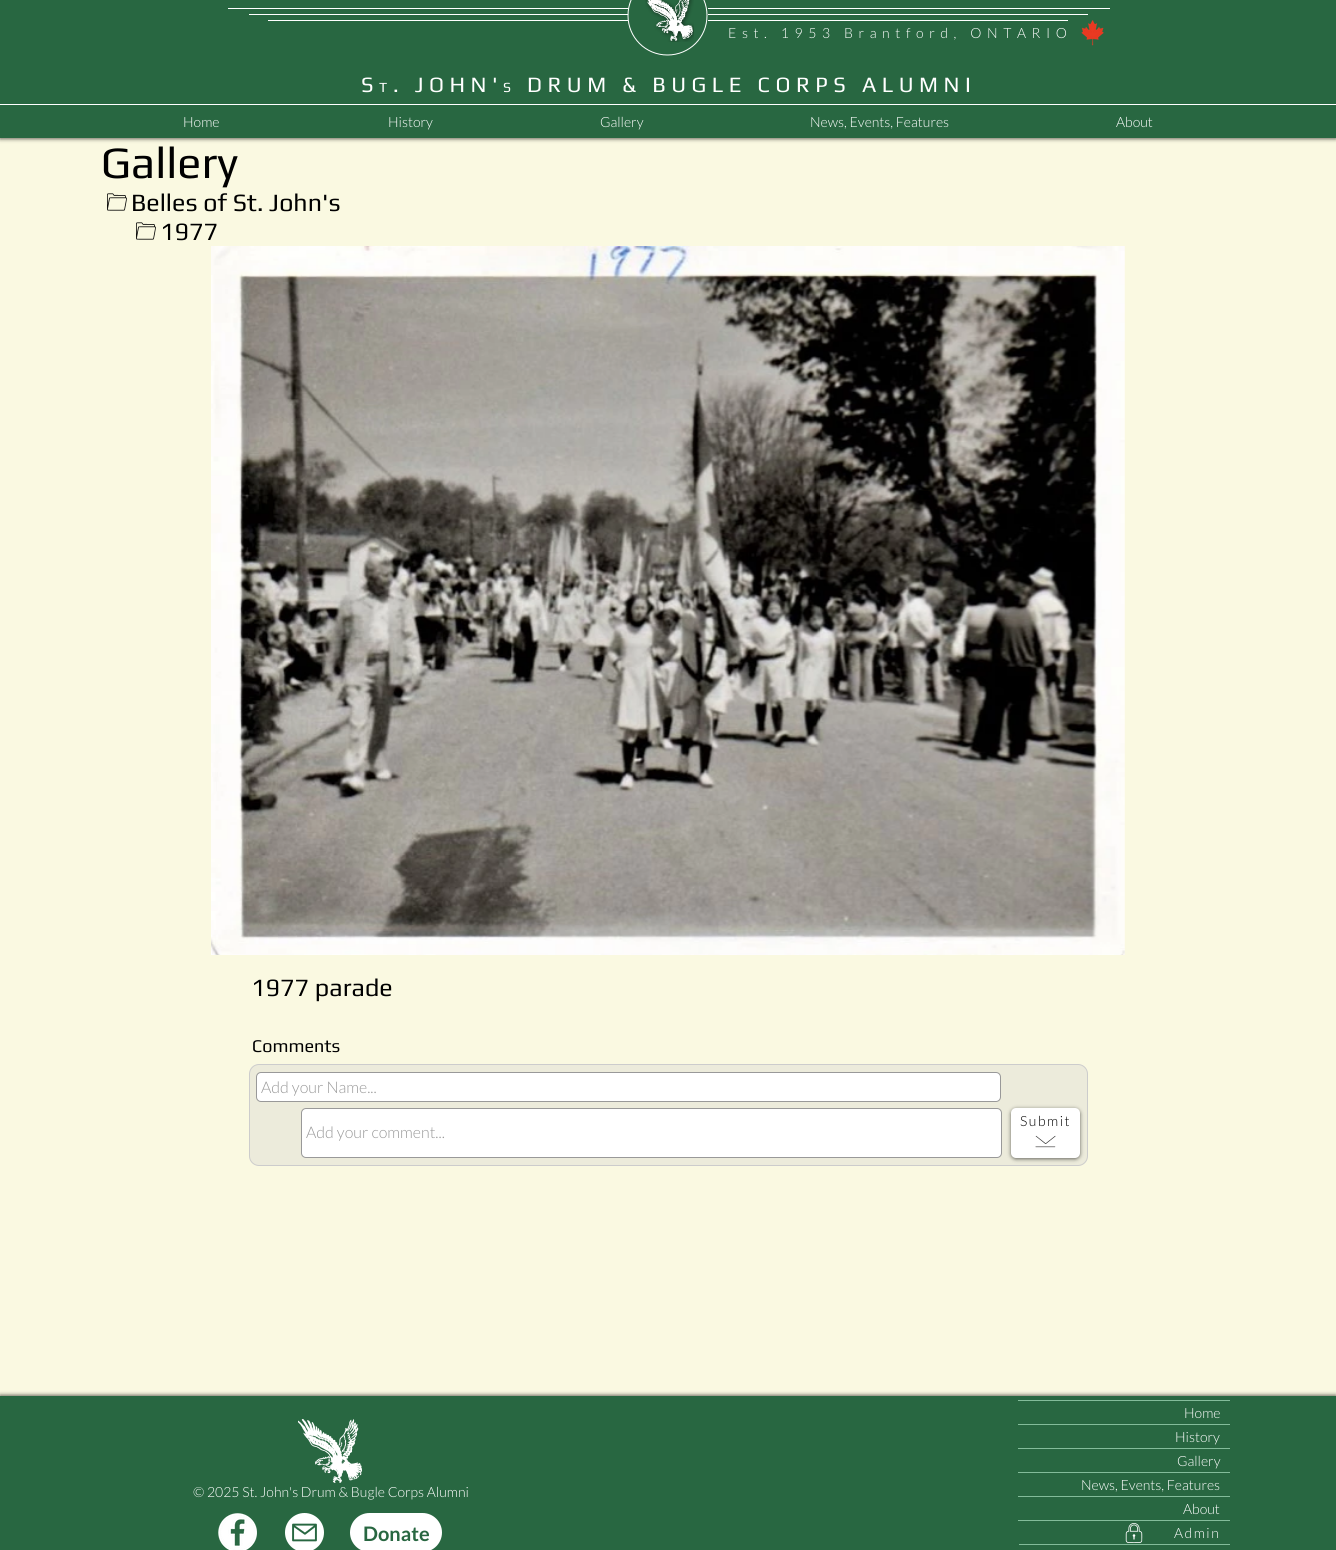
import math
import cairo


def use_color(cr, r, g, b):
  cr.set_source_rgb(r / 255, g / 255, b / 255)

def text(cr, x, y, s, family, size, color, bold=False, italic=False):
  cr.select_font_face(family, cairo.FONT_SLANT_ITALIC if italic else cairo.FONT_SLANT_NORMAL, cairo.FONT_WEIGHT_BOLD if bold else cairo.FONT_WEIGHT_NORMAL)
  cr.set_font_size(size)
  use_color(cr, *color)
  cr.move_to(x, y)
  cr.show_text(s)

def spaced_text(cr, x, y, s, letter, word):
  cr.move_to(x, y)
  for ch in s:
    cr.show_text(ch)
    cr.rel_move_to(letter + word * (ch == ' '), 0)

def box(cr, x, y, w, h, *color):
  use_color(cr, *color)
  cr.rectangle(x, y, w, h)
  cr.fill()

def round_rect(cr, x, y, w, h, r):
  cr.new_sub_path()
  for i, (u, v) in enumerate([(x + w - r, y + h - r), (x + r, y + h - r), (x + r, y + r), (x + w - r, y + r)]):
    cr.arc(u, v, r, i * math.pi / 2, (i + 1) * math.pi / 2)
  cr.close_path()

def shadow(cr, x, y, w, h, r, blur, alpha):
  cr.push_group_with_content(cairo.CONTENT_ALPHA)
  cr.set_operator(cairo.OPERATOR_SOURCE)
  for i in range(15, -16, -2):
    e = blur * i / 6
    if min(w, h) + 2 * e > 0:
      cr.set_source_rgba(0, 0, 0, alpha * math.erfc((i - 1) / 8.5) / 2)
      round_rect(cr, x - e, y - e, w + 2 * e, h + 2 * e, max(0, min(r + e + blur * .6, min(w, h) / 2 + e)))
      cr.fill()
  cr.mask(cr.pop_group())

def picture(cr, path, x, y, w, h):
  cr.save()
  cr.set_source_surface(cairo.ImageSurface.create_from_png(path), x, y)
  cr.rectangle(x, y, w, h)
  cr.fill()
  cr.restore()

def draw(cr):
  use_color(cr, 250, 249, 225)
  cr.paint()
  use_color(cr, 0, 0, 0)
  shadow(cr, 0, -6, 1336, 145, 0, 2, 0.6)
  box(cr, 0, 0, 1336, 138, 40, 103, 65)
  box(cr, 228, 8, 402, 1, 255, 255, 255)
  box(cr, 249, 14, 380, 1, 255, 255, 255)
  box(cr, 268, 20, 360, 1, 255, 255, 255)
  use_color(cr, 40, 103, 65)
  cr.new_path()
  cr.move_to(707, 16)
  cr.curve_to(707, 37, 689, 55, 668, 55)
  cr.curve_to(646, 55, 628, 37, 628, 16)
  cr.curve_to(628, -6, 646, -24, 668, -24)
  cr.curve_to(689, -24, 707, -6, 707, 16)
  cr.close_path()
  cr.fill()
  cr.new_path()
  cr.move_to(707, 15.5)
  cr.curve_to(707, 37.5, 689.5, 55, 667.5, 55)
  cr.curve_to(645.5, 55, 628, 37.5, 628, 15.5)
  cr.curve_to(628, -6.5, 645.5, -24, 667.5, -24)
  cr.curve_to(689.5, -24, 707, -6.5, 707, 15.5)
  cr.close_path()
  use_color(cr, 255, 255, 255)
  cr.set_line_width(1)
  cr.stroke()
  picture(cr, "img_01.png", 645, 0, 49, 42)
  box(cr, 708, 8, 402, 1, 255, 255, 255)
  box(cr, 708, 14, 380, 1, 255, 255, 255)
  box(cr, 708, 20, 360, 1, 255, 255, 255)
  picture(cr, "img_02.png", 1081, 20, 23, 26)
  box(cr, 0, 104, 1336, 1, 255, 255, 255)
  picture(cr, "img_03.png", 107, 193, 20, 18)
  picture(cr, "img_03.png", 136, 222, 20, 18)
  picture(cr, "img_04.png", 211, 246, 914, 709)
  use_color(cr, 236, 235, 219)
  round_rect(cr, 249.5, 1064.5, 838, 101, 9.5)
  cr.fill_preserve()
  use_color(cr, 204, 204, 204)
  cr.stroke()
  use_color(cr, 255, 255, 255)
  round_rect(cr, 256.5, 1072.5, 744, 29, 4.5)
  cr.fill_preserve()
  use_color(cr, 153, 153, 153)
  cr.stroke()
  use_color(cr, 0, 0, 0)
  shadow(cr, 1011, 1109, 69, 50, 5, 2, 0.6)
  use_color(cr, 255, 255, 255)
  round_rect(cr, 1011, 1108, 69, 50, 5)
  cr.fill()
  picture(cr, "img_05.png", 1035, 1135, 21, 13)
  round_rect(cr, 301.5, 1108.5, 700, 49, 4.5)
  cr.fill_preserve()
  use_color(cr, 153, 153, 153)
  cr.stroke()
  use_color(cr, 0, 0, 0)
  shadow(cr, 0, 1395, 1336, 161, 0, 2, 0.6)
  box(cr, 0, 1396, 1336, 154, 40, 103, 65)
  picture(cr, "img_06.png", 298, 1419, 64, 64)
  picture(cr, "img_07.png", 218, 1513, 39, 37)
  use_color(cr, 255, 255, 255)
  cr.arc(304.5, 1532.5, 19.5, 0, 2 * math.pi)
  cr.fill()
  picture(cr, "img_08.png", 292, 1523, 25, 19)
  round_rect(cr, 350, 1513, 92, 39, 19.5)
  cr.fill()
  box(cr, 1018, 1400, 212, 1, 131, 188, 154)
  box(cr, 1018, 1520, 212, 1, 131, 188, 154)
  box(cr, 1018, 1424, 212, 1, 131, 188, 154)
  box(cr, 1018, 1448, 212, 1, 131, 188, 154)
  box(cr, 1018, 1472, 212, 1, 131, 188, 154)
  box(cr, 1018, 1496, 212, 1, 131, 188, 154)
  box(cr, 1019, 1544, 211, 1, 131, 188, 154)
  picture(cr, "img_09.png", 1125, 1523, 18, 20)
  cr.select_font_face("Lato Light")
  cr.set_font_size(14)
  use_color(cr, 255, 255, 255)
  spaced_text(cr, 728, 38, "Est. 1953 Brantford, ONTARIO", 5.6, 0)
  cr.select_font_face("Play")
  cr.set_font_size(22)
  spaced_text(cr, 361, 92, "S", 5.5, 0)
  cr.set_font_size(14)
  spaced_text(cr, 379, 92, "T", 5.5, 0)
  cr.set_font_size(22)
  spaced_text(cr, 393, 92, ". JOHN'", 5.5, 0)
  cr.set_font_size(14)
  spaced_text(cr, 503, 92, "S", 5.5, 0)
  cr.set_font_size(22)
  spaced_text(cr, 527, 92, "DRUM & BUGLE CORPS ALUMNI", 5.5, 0)
  text(cr, 183, 127, "Home", "Lato Light", 14, (255, 255, 255))
  text(cr, 388, 127, "History", "Lato Light", 14, (255, 255, 255))
  text(cr, 600, 127, "Gallery", "Lato Light", 14, (255, 255, 255))
  text(cr, 810, 127, "News, Events, Features", "Lato Light", 14, (255, 255, 255))
  text(cr, 1116, 127, "About", "Lato Light", 14, (255, 255, 255))
  text(cr, 101, 178, "Gallery", "Play", 45, (0, 0, 0))
  text(cr, 131, 211, "Belles of St. John's", "Play", 25, (0, 0, 0))
  text(cr, 160, 240, "1977", "Play", 25, (0, 0, 0))
  text(cr, 251, 996, "1977 parade", "Play", 25, (0, 0, 0))
  text(cr, 252, 1052, "Comments", "Play", 18, (0, 0, 0))
  text(cr, 261, 1093, "Add your Name...", "Lato Light", 16, (153, 153, 153))
  cr.set_font_size(14)
  use_color(cr, 0, 0, 0)
  spaced_text(cr, 1020, 1126, "Submit", 1.5, 0)
  text(cr, 306, 1138, "Add your comment...", "Lato Light", 16, (153, 153, 153))
  text(cr, 193, 1497, "© 2025 St. John's Drum & Bugle Corps Alumni", "Lato Light", 14, (255, 255, 255))
  text(cr, 363, 1541, "Donate", "Lato", 20, (40, 103, 65), bold=True)
  text(cr, 1184, 1418, "Home", "Lato Light", 14, (255, 255, 255))
  text(cr, 1175, 1442, "History", "Lato Light", 14, (255, 255, 255))
  text(cr, 1177, 1466, "Gallery", "Lato Light", 14, (255, 255, 255))
  text(cr, 1081, 1490, "News, Events, Features", "Lato Light", 14, (255, 255, 255))
  text(cr, 1183, 1514, "About", "Lato Light", 14, (255, 255, 255))
  spaced_text(cr, 1174, 1538, "Admin", 1.5, 0)


surface = cairo.ImageSurface(cairo.FORMAT_RGB24, 1336, 1550)
cr = cairo.Context(surface)
options = cairo.FontOptions()
options.set_hint_metrics(cairo.HINT_METRICS_OFF)
options.set_hint_style(cairo.HINT_STYLE_NONE)
cr.set_font_options(options)
cr.set_miter_limit(4)
draw(cr)
surface.write_to_png("out.png")
